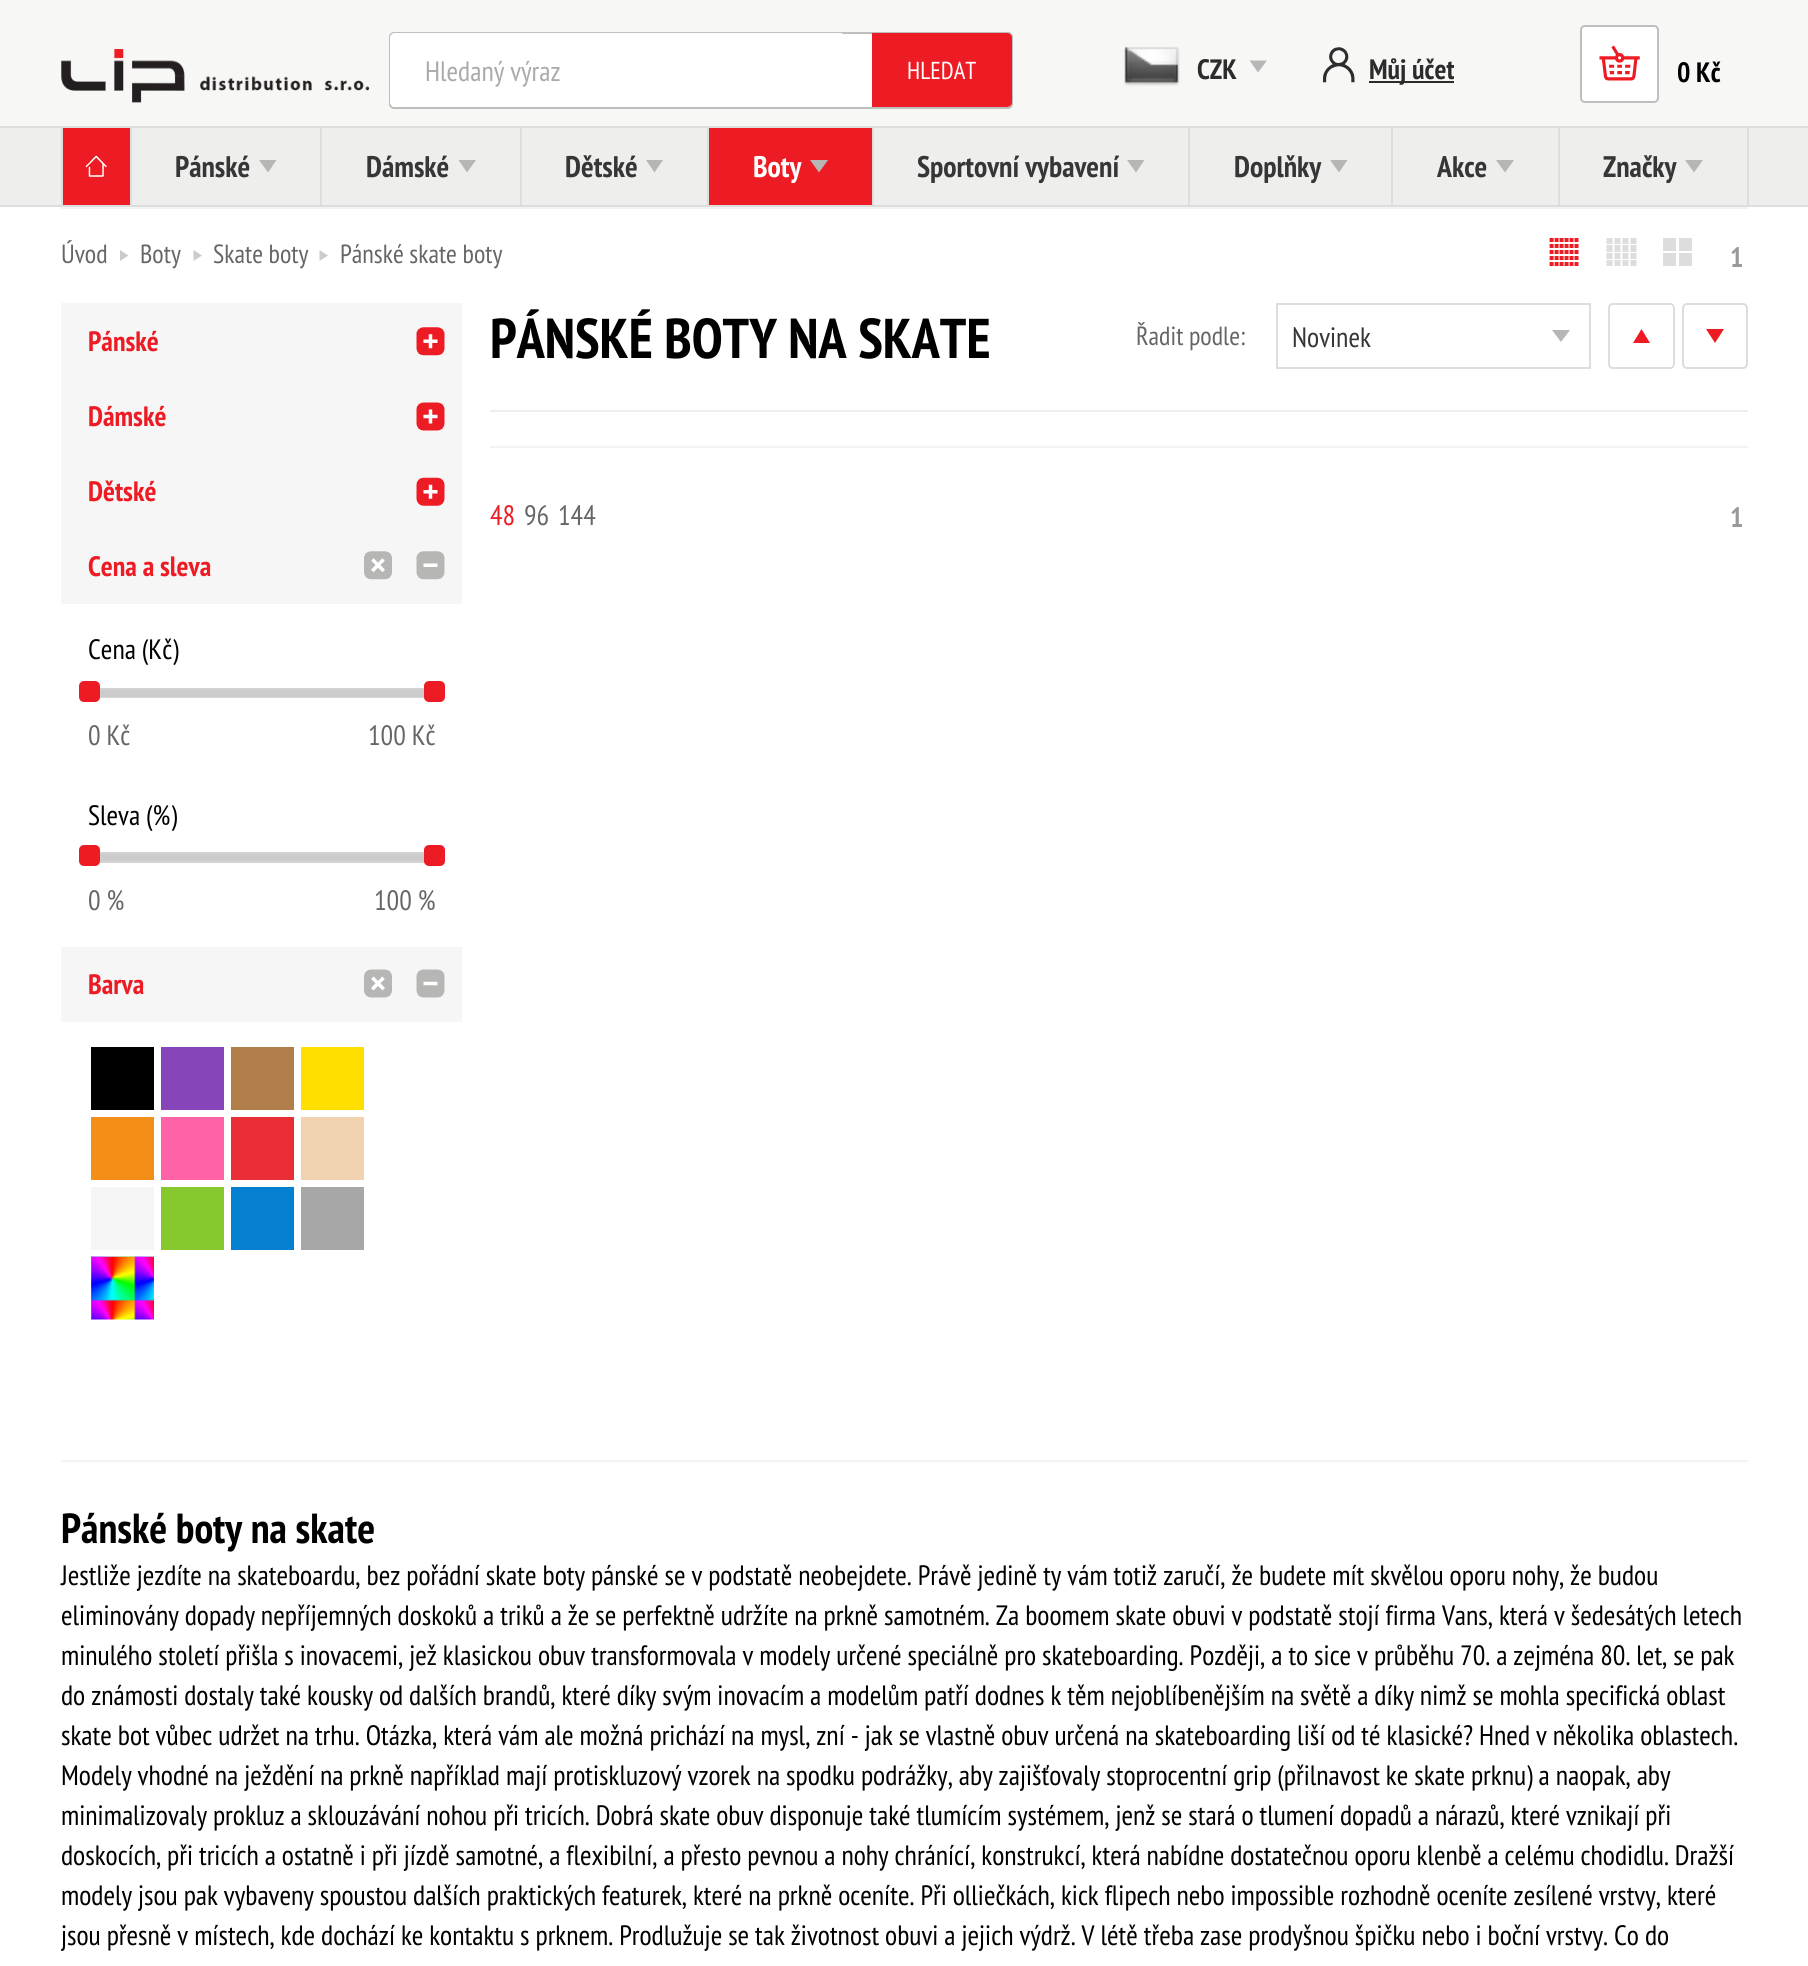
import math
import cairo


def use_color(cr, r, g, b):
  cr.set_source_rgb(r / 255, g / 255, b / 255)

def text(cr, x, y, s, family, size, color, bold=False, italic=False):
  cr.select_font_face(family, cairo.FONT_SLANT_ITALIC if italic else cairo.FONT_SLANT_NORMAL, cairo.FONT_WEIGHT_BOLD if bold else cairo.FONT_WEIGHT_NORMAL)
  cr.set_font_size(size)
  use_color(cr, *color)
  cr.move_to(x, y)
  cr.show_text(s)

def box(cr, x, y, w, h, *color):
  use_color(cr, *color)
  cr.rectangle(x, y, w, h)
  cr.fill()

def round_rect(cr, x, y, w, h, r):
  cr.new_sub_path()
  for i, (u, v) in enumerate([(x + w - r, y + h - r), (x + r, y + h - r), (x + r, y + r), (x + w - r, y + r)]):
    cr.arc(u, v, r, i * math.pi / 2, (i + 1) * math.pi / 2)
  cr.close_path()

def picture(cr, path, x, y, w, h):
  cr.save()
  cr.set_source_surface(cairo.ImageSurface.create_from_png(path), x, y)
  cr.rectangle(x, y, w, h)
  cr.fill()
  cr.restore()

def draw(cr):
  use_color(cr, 255, 255, 255)
  cr.paint()
  box(cr, 0, 0, 1808, 126, 247, 247, 245)
  picture(cr, "img_01.png", 61, 49, 309, 54)
  use_color(cr, 255, 255, 255)
  round_rect(cr, 390, 33, 622, 75, 4)
  cr.fill_preserve()
  use_color(cr, 190, 191, 189)
  cr.stroke()
  use_color(cr, 255, 255, 255)
  round_rect(cr, 390, 33, 455, 74, 5)
  cr.fill()
  use_color(cr, 237, 28, 36)
  cr.new_path()
  cr.move_to(872, 33)
  cr.line_to(1007, 33)
  cr.curve_to(1010, 33, 1012, 35, 1012, 38)
  cr.line_to(1012, 102)
  cr.curve_to(1012, 105, 1010, 107, 1007, 107)
  cr.line_to(872, 107)
  cr.close_path()
  cr.fill()
  picture(cr, "img_02.png", 1124, 46, 56, 40)
  use_color(cr, 183, 183, 183)
  cr.new_path()
  cr.move_to(1249.5, 60.5)
  cr.line_to(1267, 60.5)
  cr.line_to(1258, 72.5)
  cr.close_path()
  cr.fill()
  picture(cr, "img_03.png", 1323, 47, 32, 36)
  box(cr, 1369, 81, 85, 2, 44, 44, 44)
  use_color(cr, 255, 255, 255)
  round_rect(cr, 1581, 26, 77, 76, 4)
  cr.fill_preserve()
  use_color(cr, 190, 191, 189)
  cr.stroke()
  picture(cr, "img_04.png", 1599, 45, 41, 36)
  box(cr, 0, 128, 1808, 77, 238, 238, 237)
  box(cr, 0, 126, 1808, 2, 221, 221, 221)
  box(cr, 0, 205, 1808, 2, 221, 221, 221)
  box(cr, 130, 128, 2, 77, 221, 221, 221)
  box(cr, 61, 128, 2, 77, 221, 221, 221)
  box(cr, 63, 128, 67, 77, 237, 28, 36)
  picture(cr, "img_05.png", 85, 155, 22, 22)
  box(cr, 320, 128, 2, 77, 221, 221, 221)
  use_color(cr, 182, 183, 181)
  cr.new_path()
  cr.move_to(259, 160)
  cr.line_to(276.5, 160)
  cr.line_to(268, 172.5)
  cr.close_path()
  cr.fill()
  box(cr, 520, 128, 2, 77, 221, 221, 221)
  use_color(cr, 182, 183, 181)
  cr.new_path()
  cr.move_to(458.5, 160)
  cr.line_to(476, 160)
  cr.line_to(467, 172.5)
  cr.close_path()
  cr.fill()
  box(cr, 707, 128, 2, 77, 221, 221, 221)
  use_color(cr, 182, 183, 181)
  cr.new_path()
  cr.move_to(646, 160)
  cr.line_to(663, 160)
  cr.line_to(654.5, 172.5)
  cr.close_path()
  cr.fill()
  box(cr, 872, 128, 2, 77, 221, 221, 221)
  box(cr, 709, 128, 163, 77, 237, 28, 36)
  use_color(cr, 182, 183, 181)
  cr.new_path()
  cr.move_to(810, 160)
  cr.line_to(828, 160)
  cr.line_to(819, 172.5)
  cr.close_path()
  cr.fill()
  box(cr, 1188, 128, 2, 77, 221, 221, 221)
  use_color(cr, 182, 183, 181)
  cr.new_path()
  cr.move_to(1127, 160)
  cr.line_to(1144.5, 160)
  cr.line_to(1136, 172.5)
  cr.close_path()
  cr.fill()
  box(cr, 1391, 128, 2, 77, 221, 221, 221)
  use_color(cr, 182, 183, 181)
  cr.new_path()
  cr.move_to(1330, 160)
  cr.line_to(1347.5, 160)
  cr.line_to(1339, 172.5)
  cr.close_path()
  cr.fill()
  box(cr, 1558, 128, 2, 77, 221, 221, 221)
  use_color(cr, 182, 183, 181)
  cr.new_path()
  cr.move_to(1496, 160)
  cr.line_to(1514, 160)
  cr.line_to(1505, 172.5)
  cr.close_path()
  cr.fill()
  box(cr, 1747, 128, 2, 77, 221, 221, 221)
  use_color(cr, 182, 183, 181)
  cr.new_path()
  cr.move_to(1685, 160)
  cr.line_to(1703, 160)
  cr.line_to(1694, 172.5)
  cr.close_path()
  cr.fill()
  box(cr, 61, 207, 1687, 2, 243, 243, 243)
  use_color(cr, 204, 204, 204)
  cr.new_path()
  cr.move_to(120, 261)
  cr.line_to(120, 250)
  cr.line_to(128.5, 255.5)
  cr.close_path()
  cr.fill()
  cr.new_path()
  cr.move_to(193.5, 261)
  cr.line_to(193.5, 250)
  cr.line_to(202, 255.5)
  cr.close_path()
  cr.fill()
  cr.new_path()
  cr.move_to(319.5, 261)
  cr.line_to(319.5, 250)
  cr.line_to(328, 255.5)
  cr.close_path()
  cr.fill()
  picture(cr, "img_06.png", 1549, 238, 30, 28)
  picture(cr, "img_07.png", 1606, 238, 31, 28)
  picture(cr, "img_08.png", 1663, 238, 29, 28)
  box(cr, 61, 303, 401, 301, 247, 246, 246)
  picture(cr, "img_09.png", 416, 327, 29, 29)
  picture(cr, "img_10.png", 416, 402, 29, 29)
  picture(cr, "img_11.png", 416, 477, 29, 29)
  picture(cr, "img_12.png", 364, 551, 28, 29)
  picture(cr, "img_13.png", 416, 551, 29, 29)
  cr.rectangle(89, 689, 346, 8)
  use_color(cr, 211, 211, 211)
  cr.stroke()
  use_color(cr, 237, 28, 36)
  round_rect(cr, 79, 681, 21, 21, 5)
  cr.fill()
  box(cr, 100, 690, 324, 7, 204, 204, 204)
  use_color(cr, 237, 28, 36)
  round_rect(cr, 424, 681, 21, 21, 5)
  cr.fill()
  cr.rectangle(89, 853, 346, 9)
  use_color(cr, 211, 211, 211)
  cr.stroke()
  use_color(cr, 237, 28, 36)
  round_rect(cr, 79, 845, 21, 21, 5)
  cr.fill()
  box(cr, 100, 854, 324, 7, 204, 204, 204)
  use_color(cr, 237, 28, 36)
  round_rect(cr, 424, 845, 21, 21, 5)
  cr.fill()
  box(cr, 61, 947, 401, 75, 247, 246, 246)
  picture(cr, "img_14.png", 364, 969, 28, 29)
  picture(cr, "img_15.png", 416, 969, 29, 29)
  box(cr, 91, 1047, 63, 63, 0, 0, 0)
  box(cr, 161, 1047, 63, 63, 135, 69, 185)
  box(cr, 231, 1047, 63, 63, 177, 125, 72)
  box(cr, 301, 1047, 63, 63, 255, 222, 0)
  box(cr, 91, 1117, 63, 63, 243, 142, 23)
  box(cr, 161, 1117, 63, 63, 255, 98, 166)
  box(cr, 231, 1117, 63, 63, 233, 46, 53)
  box(cr, 301, 1117, 63, 63, 240, 210, 176)
  box(cr, 91, 1187, 63, 63, 245, 245, 245)
  box(cr, 161, 1187, 63, 63, 134, 200, 45)
  box(cr, 231, 1187, 63, 63, 5, 128, 208)
  box(cr, 301, 1187, 63, 63, 167, 167, 167)
  picture(cr, "img_16.png", 91, 1256, 63, 64)
  box(cr, 490, 410, 1258, 2, 238, 238, 238)
  cr.rectangle(1277, 304, 313, 64)
  use_color(cr, 221, 221, 221)
  cr.stroke()
  use_color(cr, 182, 183, 181)
  cr.new_path()
  cr.move_to(1552, 330)
  cr.line_to(1570, 330)
  cr.line_to(1561, 342)
  cr.close_path()
  cr.fill()
  round_rect(cr, 1609, 304, 65, 64, 4)
  use_color(cr, 221, 221, 221)
  cr.stroke()
  use_color(cr, 237, 28, 36)
  cr.new_path()
  cr.move_to(1650, 343)
  cr.line_to(1633, 343)
  cr.line_to(1641.5, 329)
  cr.close_path()
  cr.fill()
  round_rect(cr, 1683, 304, 64, 64, 4)
  use_color(cr, 221, 221, 221)
  cr.stroke()
  use_color(cr, 237, 28, 36)
  cr.new_path()
  cr.move_to(1706, 329)
  cr.line_to(1724, 329)
  cr.line_to(1715, 343)
  cr.close_path()
  cr.fill()
  box(cr, 490, 446, 1258, 2, 243, 243, 243)
  box(cr, 61, 1460, 1687, 2, 243, 243, 243)
  text(cr, 425, 81, "Hledaný výraz", "PT Sans Narrow", 28, (170, 170, 170))
  text(cr, 907, 79, "HLEDAT", "PT Sans Narrow", 24.5, (255, 255, 255))
  text(cr, 1197, 79, "CZK", "PT Sans Narrow", 28, (44, 44, 44), bold=True)
  text(cr, 1369, 79, "Můj účet", "PT Sans Narrow", 28, (44, 44, 44), bold=True)
  text(cr, 1677, 82, "0 Kč", "PT Sans Narrow", 28, (0, 0, 0), bold=True)
  text(cr, 175, 177, "Pánské", "PT Sans Narrow", 29.75, (54, 54, 54), bold=True)
  text(cr, 366, 177, "Dámské", "PT Sans Narrow", 29.75, (54, 54, 54), bold=True)
  text(cr, 565, 177, "Dětské", "PT Sans Narrow", 29.75, (54, 54, 54), bold=True)
  text(cr, 753, 177, "Boty", "PT Sans Narrow", 29.75, (255, 255, 255), bold=True)
  text(cr, 917, 177, "Sportovní vybavení", "PT Sans Narrow", 29.75, (54, 54, 54), bold=True)
  text(cr, 1234, 177, "Doplňky", "PT Sans Narrow", 29.75, (54, 54, 54), bold=True)
  text(cr, 1437, 177, "Akce", "PT Sans Narrow", 29.75, (54, 54, 54), bold=True)
  text(cr, 1603, 177, "Značky", "PT Sans Narrow", 29.75, (54, 54, 54), bold=True)
  text(cr, 61, 263, "Úvod", "PT Sans Narrow", 26.25, (102, 102, 102))
  text(cr, 140, 263, "Boty", "PT Sans Narrow", 26.25, (102, 102, 102))
  text(cr, 213, 263, "Skate boty", "PT Sans Narrow", 26.25, (102, 102, 102))
  text(cr, 340, 263, "Pánské skate boty", "PT Sans Narrow", 26.25, (102, 102, 102))
  text(cr, 1730, 267, "1", "PT Sans Narrow", 28, (153, 153, 153), bold=True)
  text(cr, 88, 351, "Pánské", "PT Sans Narrow", 28, (237, 28, 36), bold=True)
  text(cr, 88, 426, "Dámské", "PT Sans Narrow", 28, (237, 28, 36), bold=True)
  text(cr, 88, 501, "Dětské", "PT Sans Narrow", 28, (237, 28, 36), bold=True)
  text(cr, 88, 576, "Cena a sleva", "PT Sans Narrow", 28, (237, 28, 36), bold=True)
  text(cr, 88, 659, "Cena (Kč)", "PT Sans Narrow", 28, (0, 0, 0))
  text(cr, 88, 745, "0 Kč", "PT Sans Narrow", 28, (102, 102, 102))
  text(cr, 368, 745, "100 Kč", "PT Sans Narrow", 28, (102, 102, 102))
  text(cr, 88, 825, "Sleva (%)", "PT Sans Narrow", 28, (0, 0, 0))
  text(cr, 88, 910, "0 %", "PT Sans Narrow", 28, (102, 102, 102))
  text(cr, 374, 910, "100 %", "PT Sans Narrow", 28, (102, 102, 102))
  text(cr, 88, 994, "Barva", "PT Sans Narrow", 28, (237, 28, 36), bold=True)
  text(cr, 490, 358, "PÁNSKÉ BOTY NA SKATE", "PT Sans Narrow", 56, (0, 0, 0), bold=True)
  text(cr, 1136, 345, "Řadit podle:", "PT Sans Narrow", 26.25, (102, 102, 102))
  text(cr, 1292, 347, "Novinek", "PT Sans Narrow", 28, (54, 54, 54))
  text(cr, 490, 525, "48", "PT Sans Narrow", 28, (237, 28, 36))
  text(cr, 524, 525, "96", "PT Sans Narrow", 28, (102, 102, 102))
  text(cr, 558, 525, "144", "PT Sans Narrow", 28, (102, 102, 102))
  text(cr, 1730, 527, "1", "PT Sans Narrow", 28, (153, 153, 153), bold=True)
  text(cr, 61, 1543, "Pánské boty na skate", "PT Sans Narrow", 42, (0, 0, 0), bold=True)
  text(cr, 61, 1585, "Jestliže jezdíte na skateboardu, bez pořádní skate boty pánské se v podstatě neobejdete. Právě jedině ty vám totiž zaručí, že budete mít skvělou oporu nohy, že budou", "PT Sans Narrow", 28, (0, 0, 0))
  text(cr, 61, 1625, "eliminovány dopady nepříjemných doskoků a triků a že se perfektně udržíte na prkně samotném. Za boomem skate obuvi v podstatě stojí firma Vans, která v šedesátých letech", "PT Sans Narrow", 28, (0, 0, 0))
  text(cr, 61, 1665, "minulého století přišla s inovacemi, jež klasickou obuv transformovala v modely určené speciálně pro skateboarding. Později, a to sice v průběhu 70. a zejména 80. let, se pak", "PT Sans Narrow", 28, (0, 0, 0))
  text(cr, 61, 1705, "do známosti dostaly také kousky od dalších brandů, které díky svým inovacím a modelům patří dodnes k těm nejoblíbenějším na světě a díky nimž se mohla specifická oblast", "PT Sans Narrow", 28, (0, 0, 0))
  text(cr, 61, 1745, "skate bot vůbec udržet na trhu. Otázka, která vám ale možná prichází na mysl, zní - jak se vlastně obuv určená na skateboarding liší od té klasické? Hned v několika oblastech.", "PT Sans Narrow", 28, (0, 0, 0))
  text(cr, 61, 1785, "Modely vhodné na ježdění na prkně například mají protiskluzový vzorek na spodku podrážky, aby zajišťovaly stoprocentní grip (přilnavost ke skate prknu) a naopak, aby", "PT Sans Narrow", 28, (0, 0, 0))
  text(cr, 61, 1825, "minimalizovaly prokluz a sklouzávání nohou při tricích. Dobrá skate obuv disponuje také tlumícím systémem, jenž se stará o tlumení dopadů a nárazů, které vznikají při", "PT Sans Narrow", 28, (0, 0, 0))
  text(cr, 61, 1865, "doskocích, při tricích a ostatně i při jízdě samotné, a flexibilní, a přesto pevnou a nohy chránící, konstrukcí, která nabídne dostatečnou oporu klenbě a celému chodidlu. Dražší", "PT Sans Narrow", 28, (0, 0, 0))
  text(cr, 61, 1905, "modely jsou pak vybaveny spoustou dalších praktických featurek, které na prkně oceníte. Při olliečkách, kick flipech nebo impossible rozhodně oceníte zesílené vrstvy, které", "PT Sans Narrow", 28, (0, 0, 0))
  text(cr, 61, 1945, "jsou přesně v místech, kde dochází ke kontaktu s prknem. Prodlužuje se tak životnost obuvi a jejich výdrž. V létě třeba zase prodyšnou špičku nebo i boční vrstvy. Co do", "PT Sans Narrow", 28, (0, 0, 0))


surface = cairo.ImageSurface(cairo.FORMAT_RGB24, 1808, 1966)
cr = cairo.Context(surface)
options = cairo.FontOptions()
options.set_hint_metrics(cairo.HINT_METRICS_OFF)
options.set_hint_style(cairo.HINT_STYLE_NONE)
cr.set_font_options(options)
cr.set_miter_limit(4)
draw(cr)
surface.write_to_png("out.png")
